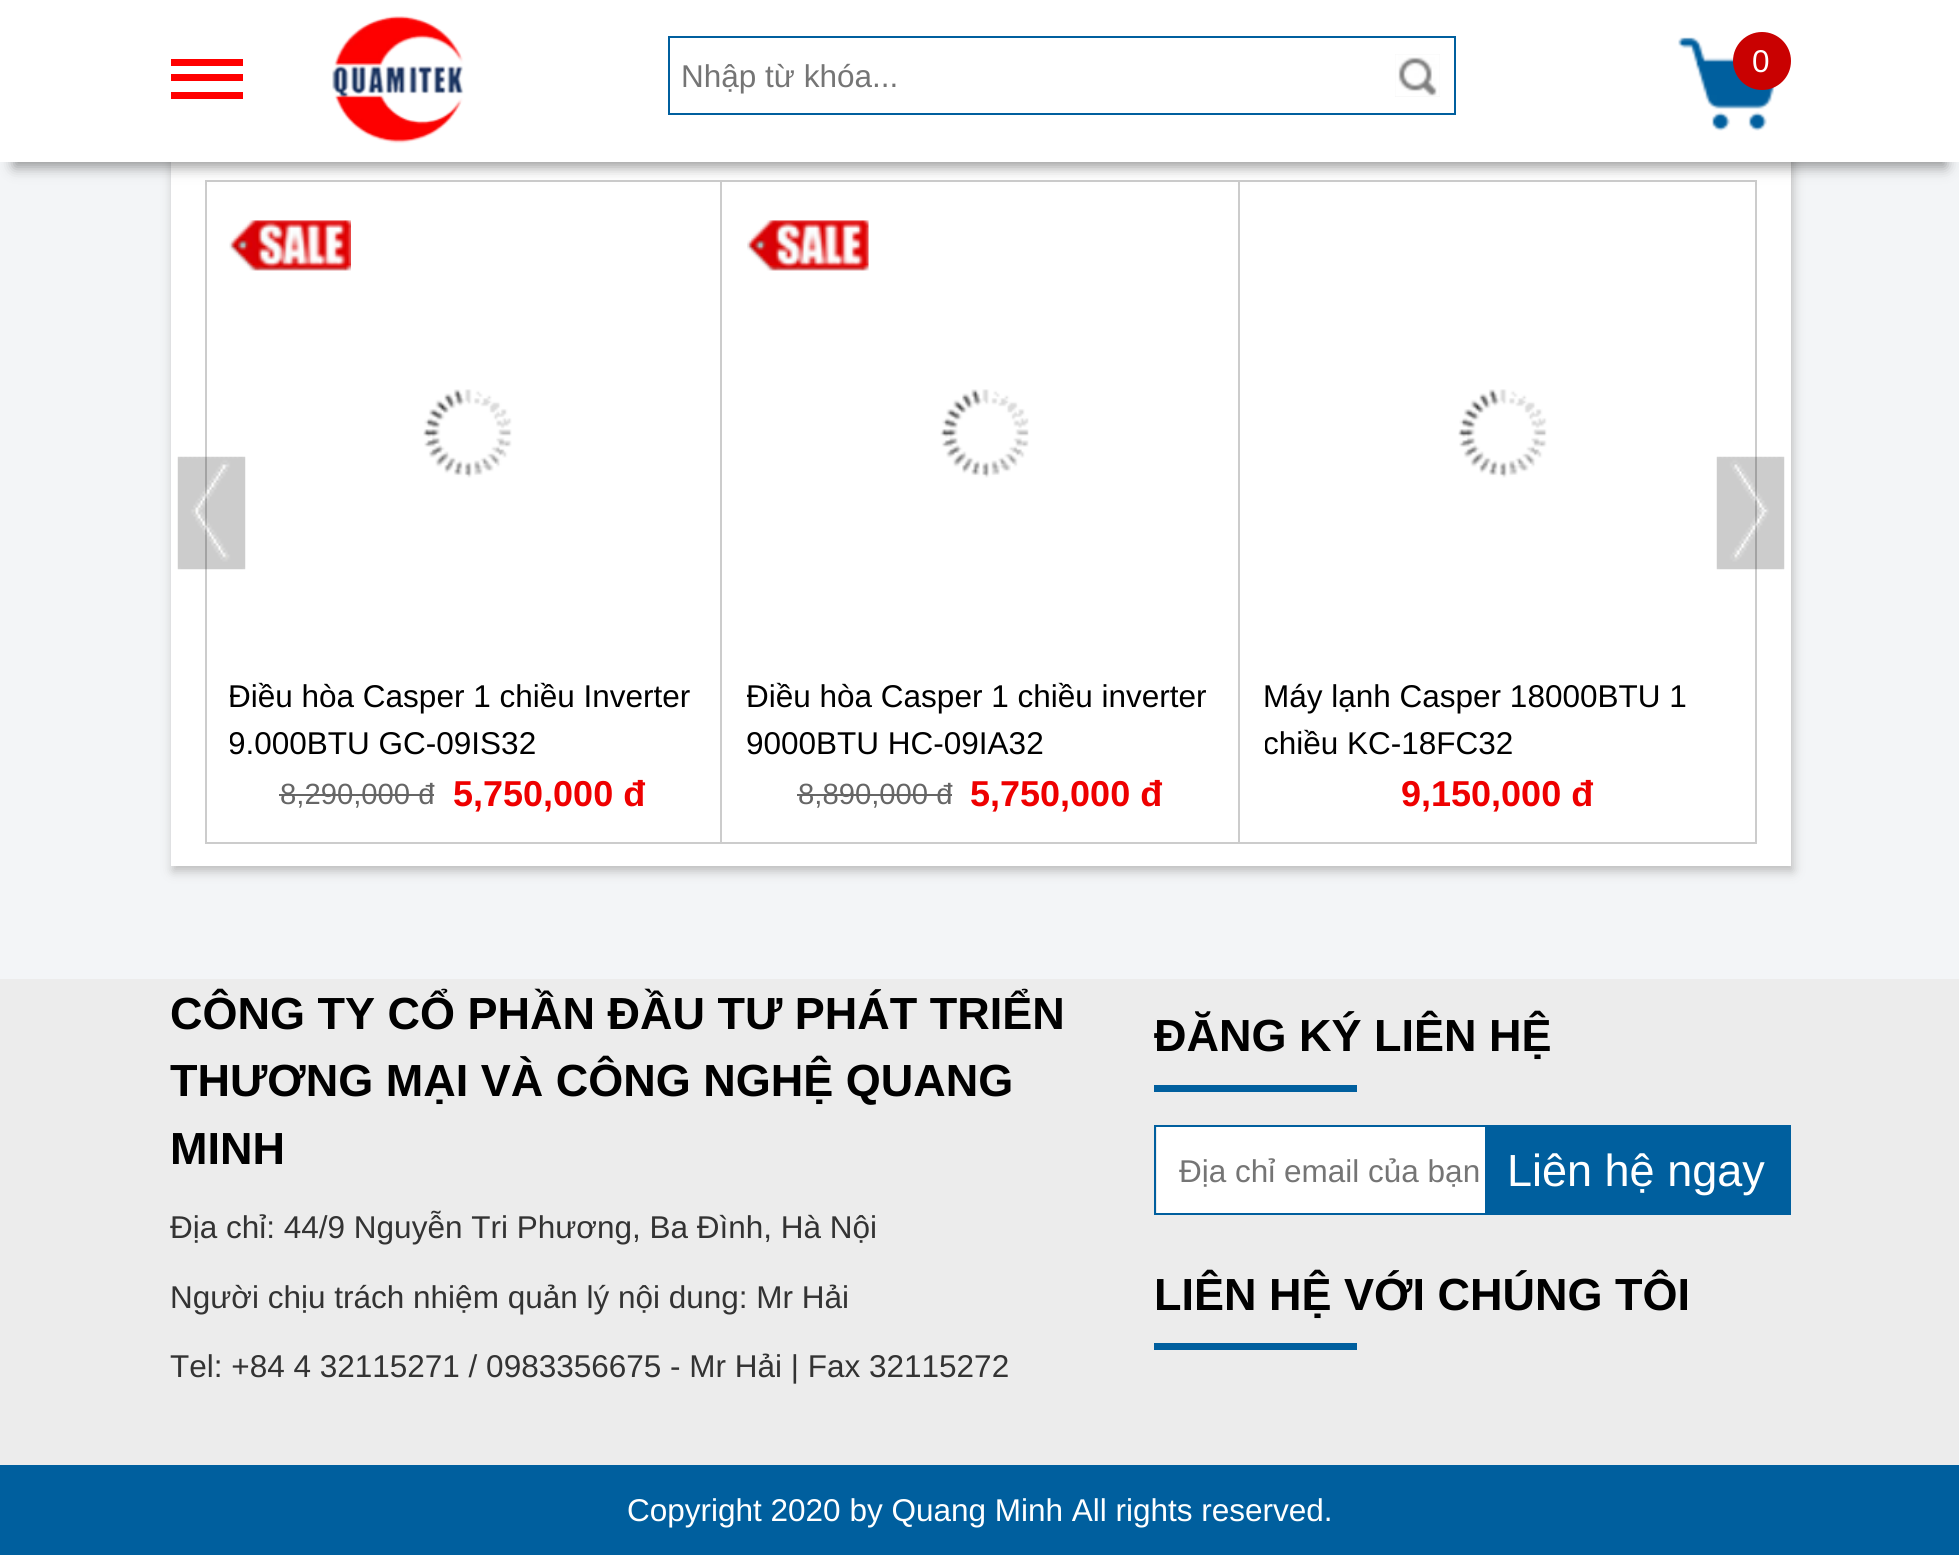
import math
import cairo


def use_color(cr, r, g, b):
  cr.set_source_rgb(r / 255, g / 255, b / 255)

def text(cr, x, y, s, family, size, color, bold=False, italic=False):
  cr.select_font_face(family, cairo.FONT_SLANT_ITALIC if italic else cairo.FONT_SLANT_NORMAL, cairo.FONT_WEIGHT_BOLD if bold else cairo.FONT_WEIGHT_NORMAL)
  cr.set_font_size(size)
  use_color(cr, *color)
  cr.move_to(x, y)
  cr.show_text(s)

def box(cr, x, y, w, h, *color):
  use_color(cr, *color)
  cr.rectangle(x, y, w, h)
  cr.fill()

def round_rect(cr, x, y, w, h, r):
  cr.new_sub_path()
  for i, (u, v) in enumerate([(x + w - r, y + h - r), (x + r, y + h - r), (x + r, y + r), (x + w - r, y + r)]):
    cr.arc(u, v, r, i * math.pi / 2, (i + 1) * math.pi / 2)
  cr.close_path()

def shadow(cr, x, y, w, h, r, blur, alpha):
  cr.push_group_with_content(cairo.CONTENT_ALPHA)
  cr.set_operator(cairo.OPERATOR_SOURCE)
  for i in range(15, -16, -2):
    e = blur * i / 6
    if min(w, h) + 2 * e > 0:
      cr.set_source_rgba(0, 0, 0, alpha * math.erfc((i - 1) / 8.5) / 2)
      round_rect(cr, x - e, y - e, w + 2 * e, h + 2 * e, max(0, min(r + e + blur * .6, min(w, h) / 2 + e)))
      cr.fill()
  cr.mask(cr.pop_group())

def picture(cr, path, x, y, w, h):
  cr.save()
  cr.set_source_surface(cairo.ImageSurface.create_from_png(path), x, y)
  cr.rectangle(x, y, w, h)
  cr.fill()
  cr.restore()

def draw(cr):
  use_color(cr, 243, 245, 247)
  cr.paint()
  use_color(cr, 187, 187, 187)
  shadow(cr, 173, 72, 1620, 799, 0, 5.5, 1)
  box(cr, 171, 162, 1620, 704, 255, 255, 255)
  cr.rectangle(206, 181, 1550, 662)
  use_color(cr, 204, 204, 204)
  cr.stroke()
  box(cr, 720, 180, 2, 664, 204, 204, 204)
  box(cr, 1238, 180, 2, 664, 204, 204, 204)
  use_color(cr, 0, 0, 0)
  shadow(cr, 14, 32, 1932, 135, 0, 7, 0.4)
  box(cr, 0, 0, 1959, 162, 255, 255, 255)
  box(cr, 171, 59, 72, 7, 255, 0, 0)
  box(cr, 171, 74, 72, 7, 255, 0, 0)
  box(cr, 171, 92, 72, 7, 255, 0, 0)
  picture(cr, "img_01.png", 332, 16, 132, 128)
  cr.rectangle(669, 37, 786, 77)
  use_color(cr, 0, 95, 158)
  cr.stroke()
  box(cr, 1395, 54, 45, 43, 239, 239, 239)
  picture(cr, "img_02.png", 1395, 54, 45, 43)
  picture(cr, "img_03.png", 1678, 37, 98, 94)
  use_color(cr, 201, 1, 1)
  cr.arc(1762, 61, 29, 0, 2 * math.pi)
  cr.fill()
  picture(cr, "img_04.png", 177, 456, 69, 114)
  picture(cr, "img_05.png", 1716, 456, 69, 114)
  picture(cr, "img_06.png", 229, 220, 122, 51)
  picture(cr, "img_07.png", 423, 389, 89, 89)
  box(cr, 279, 794, 155, 2, 102, 102, 102)
  picture(cr, "img_08.png", 747, 220, 122, 51)
  picture(cr, "img_09.png", 940, 389, 89, 89)
  box(cr, 797, 794, 155, 2, 102, 102, 102)
  picture(cr, "img_07.png", 1458, 389, 89, 89)
  box(cr, 0, 979, 1959, 486, 236, 236, 236)
  box(cr, 1154, 1085, 203, 7, 0, 95, 158)
  cr.rectangle(1155, 1126, 635, 88)
  cr.stroke()
  box(cr, 1157, 1127, 328, 86, 255, 255, 255)
  box(cr, 1485, 1127, 304, 86, 0, 95, 158)
  box(cr, 1154, 1343, 203, 7, 0, 95, 158)
  box(cr, 0, 1465, 1959, 90, 0, 95, 158)
  text(cr, 681, 87, "Nhập từ khóa...", "Liberation Sans", 31.5, (117, 117, 117))
  text(cr, 1752, 72, "0", "Liberation Sans", 31.5, (255, 255, 255))
  cr.save()
  cr.rectangle(230, 673, 468, 94)
  cr.clip()
  text(cr, 228, 707, "Điều hòa Casper 1 chiều Inverter", "Liberation Sans", 31.5, (0, 0, 0))
  text(cr, 228, 754, "9.000BTU GC-09IS32", "Liberation Sans", 31.5, (0, 0, 0))
  cr.restore()
  text(cr, 280, 804, "8,290,000 đ", "Liberation Sans", 29.25, (102, 102, 102))
  text(cr, 453, 806, "5,750,000 đ", "Liberation Sans", 36, (238, 0, 0), bold=True)
  cr.save()
  cr.rectangle(747, 673, 468, 94)
  cr.clip()
  text(cr, 746, 707, "Điều hòa Casper 1 chiều inverter", "Liberation Sans", 31.5, (0, 0, 0))
  cr.restore()
  text(cr, 746, 754, "9000BTU HC-09IA32", "Liberation Sans", 31.5, (0, 0, 0))
  text(cr, 798, 804, "8,890,000 đ", "Liberation Sans", 29.25, (102, 102, 102))
  text(cr, 970, 806, "5,750,000 đ", "Liberation Sans", 36, (238, 0, 0), bold=True)
  text(cr, 1263, 707, "Máy lạnh Casper 18000BTU 1", "Liberation Sans", 31.5, (0, 0, 0))
  cr.save()
  cr.rectangle(1265, 673, 468, 94)
  cr.clip()
  text(cr, 1263, 754, "chiều KC-18FC32", "Liberation Sans", 31.5, (0, 0, 0))
  cr.restore()
  text(cr, 1401, 806, "9,150,000 đ", "Liberation Sans", 36, (238, 0, 0), bold=True)
  text(cr, 170, 1029, "CÔNG TY CỔ PHẦN ĐẦU TƯ PHÁT TRIỂN", "Liberation Sans", 45, (0, 0, 0), bold=True)
  text(cr, 170, 1096, "THƯƠNG MẠI VÀ CÔNG NGHỆ QUANG", "Liberation Sans", 45, (0, 0, 0), bold=True)
  text(cr, 170, 1164, "MINH", "Liberation Sans", 45, (0, 0, 0), bold=True)
  text(cr, 170, 1238, "Địa chỉ: 44/9 Nguyễn Tri Phương, Ba Đình, Hà Nội", "Liberation Sans", 31.5, (51, 51, 51))
  text(cr, 170, 1308, "Người chịu trách nhiệm quản lý nội dung: Mr Hải", "Liberation Sans", 31.5, (51, 51, 51))
  text(cr, 170, 1377, "Tel: +84 4 32115271 / 0983356675 - Mr Hải | Fax 32115272", "Liberation Sans", 31.5, (51, 51, 51))
  text(cr, 1154, 1051, "ĐĂNG KÝ LIÊN HỆ", "Liberation Sans", 45, (0, 0, 0), bold=True)
  text(cr, 1179, 1182, "Địa chỉ email của bạn", "Liberation Sans", 31.5, (117, 117, 117))
  text(cr, 1507, 1186, "Liên hệ ngay", "Liberation Sans", 45, (255, 255, 255))
  text(cr, 1154, 1310, "LIÊN HỆ VỚI CHÚNG TÔI", "Liberation Sans", 45, (0, 0, 0), bold=True)
  text(cr, 627, 1521, "Copyright 2020 by Quang Minh All rights reserved.", "Liberation Sans", 31.5, (255, 255, 255))


surface = cairo.ImageSurface(cairo.FORMAT_RGB24, 1959, 1555)
cr = cairo.Context(surface)
options = cairo.FontOptions()
options.set_hint_metrics(cairo.HINT_METRICS_OFF)
options.set_hint_style(cairo.HINT_STYLE_NONE)
cr.set_font_options(options)
cr.set_miter_limit(4)
draw(cr)
surface.write_to_png("out.png")
